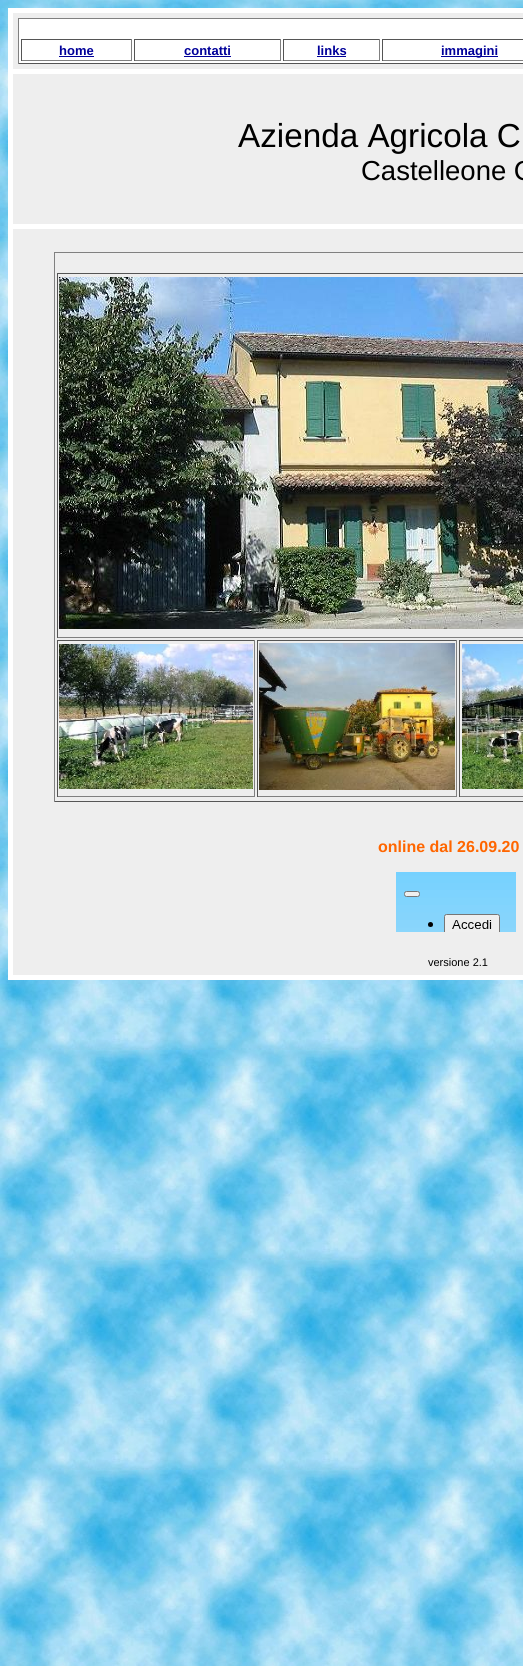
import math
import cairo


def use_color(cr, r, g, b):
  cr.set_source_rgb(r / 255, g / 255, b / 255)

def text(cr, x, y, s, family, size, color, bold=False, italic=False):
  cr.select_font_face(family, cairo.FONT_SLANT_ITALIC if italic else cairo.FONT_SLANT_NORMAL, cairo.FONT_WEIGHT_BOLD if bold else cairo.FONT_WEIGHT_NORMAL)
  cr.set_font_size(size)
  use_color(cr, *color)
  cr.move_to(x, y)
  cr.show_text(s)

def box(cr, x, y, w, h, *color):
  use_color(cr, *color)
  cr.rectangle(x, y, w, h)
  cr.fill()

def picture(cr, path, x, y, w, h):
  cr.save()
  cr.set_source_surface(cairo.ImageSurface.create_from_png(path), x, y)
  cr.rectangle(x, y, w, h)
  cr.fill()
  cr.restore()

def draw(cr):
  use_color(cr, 255, 255, 255)
  cr.paint()
  picture(cr, "img_01.png", 0, 0, 523, 1666)
  box(cr, 8, 8, 515, 972, 255, 255, 255)
  box(cr, 13, 13, 510, 56, 238, 238, 238)
  box(cr, 19, 19, 504, 44, 255, 255, 255)
  box(cr, 18, 18, 505, 1, 128, 128, 128)
  box(cr, 18, 63, 505, 1, 85, 85, 85)
  box(cr, 18, 18, 1, 46, 128, 128, 128)
  box(cr, 21, 39, 111, 1, 85, 85, 85)
  box(cr, 131, 39, 1, 22, 128, 128, 128)
  box(cr, 21, 60, 111, 1, 128, 128, 128)
  box(cr, 21, 39, 1, 22, 85, 85, 85)
  box(cr, 59, 56, 35, 1, 0, 0, 153)
  box(cr, 134, 39, 147, 1, 85, 85, 85)
  box(cr, 280, 39, 1, 22, 128, 128, 128)
  box(cr, 134, 60, 147, 1, 128, 128, 128)
  box(cr, 134, 39, 1, 22, 85, 85, 85)
  box(cr, 184, 56, 47, 1, 0, 0, 153)
  box(cr, 283, 39, 97, 1, 85, 85, 85)
  box(cr, 379, 39, 1, 22, 128, 128, 128)
  box(cr, 283, 60, 97, 1, 128, 128, 128)
  box(cr, 283, 39, 1, 22, 85, 85, 85)
  box(cr, 317, 56, 29, 1, 0, 0, 153)
  box(cr, 382, 39, 141, 1, 85, 85, 85)
  box(cr, 382, 60, 141, 1, 128, 128, 128)
  box(cr, 382, 39, 1, 22, 85, 85, 85)
  box(cr, 441, 56, 57, 1, 0, 0, 153)
  box(cr, 13, 74, 510, 150, 238, 238, 238)
  box(cr, 13, 229, 510, 746, 238, 238, 238)
  box(cr, 54, 252, 469, 1, 128, 128, 128)
  box(cr, 54, 801, 469, 1, 85, 85, 85)
  box(cr, 54, 252, 1, 550, 128, 128, 128)
  box(cr, 57, 273, 466, 1, 85, 85, 85)
  box(cr, 57, 637, 466, 1, 128, 128, 128)
  box(cr, 57, 273, 1, 365, 85, 85, 85)
  picture(cr, "img_02.png", 59, 277, 464, 352)
  box(cr, 57, 640, 198, 1, 85, 85, 85)
  box(cr, 254, 640, 1, 157, 128, 128, 128)
  box(cr, 57, 796, 198, 1, 128, 128, 128)
  box(cr, 57, 640, 1, 157, 85, 85, 85)
  picture(cr, "img_03.png", 59, 644, 194, 145)
  box(cr, 257, 640, 200, 1, 85, 85, 85)
  box(cr, 456, 640, 1, 157, 128, 128, 128)
  box(cr, 257, 796, 200, 1, 128, 128, 128)
  box(cr, 257, 640, 1, 157, 85, 85, 85)
  picture(cr, "img_04.png", 259, 643, 196, 147)
  box(cr, 459, 640, 64, 1, 85, 85, 85)
  box(cr, 459, 796, 64, 1, 128, 128, 128)
  box(cr, 459, 640, 1, 157, 85, 85, 85)
  picture(cr, "img_05.png", 462, 644, 61, 145)
  picture(cr, "img_06.png", 396, 872, 120, 60)
  text(cr, 59, 55, "home", "Liberation Sans", 13, (0, 0, 153), bold=True)
  text(cr, 184, 55, "contatti", "Liberation Sans", 13, (0, 0, 153), bold=True)
  text(cr, 317, 55, "links", "Liberation Sans", 13, (0, 0, 153), bold=True)
  text(cr, 441, 55, "immagini", "Liberation Sans", 13, (0, 0, 153), bold=True)
  text(cr, 238, 147, "Azienda Agricola C", "Liberation Sans", 33.25, (0, 0, 0))
  text(cr, 361, 180, "Castelleone C", "Liberation Sans", 27.5, (0, 0, 0))
  text(cr, 378, 852, "online dal 26.09.20", "Liberation Sans", 16, (255, 102, 0), bold=True)
  text(cr, 428, 966, "versione 2.1", "Liberation Sans", 11, (0, 0, 0))


surface = cairo.ImageSurface(cairo.FORMAT_RGB24, 523, 1666)
cr = cairo.Context(surface)
options = cairo.FontOptions()
options.set_hint_metrics(cairo.HINT_METRICS_OFF)
options.set_hint_style(cairo.HINT_STYLE_NONE)
cr.set_font_options(options)
cr.set_miter_limit(4)
draw(cr)
surface.write_to_png("out.png")
